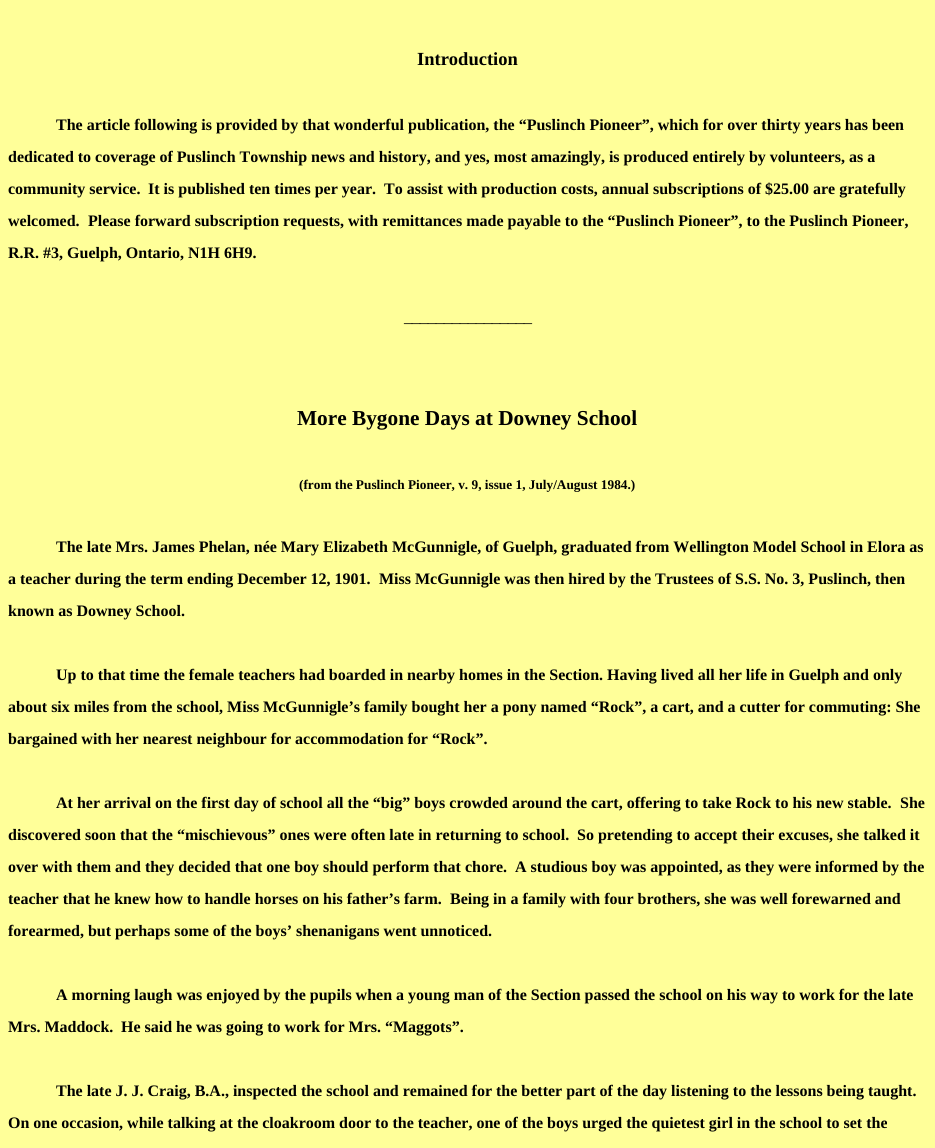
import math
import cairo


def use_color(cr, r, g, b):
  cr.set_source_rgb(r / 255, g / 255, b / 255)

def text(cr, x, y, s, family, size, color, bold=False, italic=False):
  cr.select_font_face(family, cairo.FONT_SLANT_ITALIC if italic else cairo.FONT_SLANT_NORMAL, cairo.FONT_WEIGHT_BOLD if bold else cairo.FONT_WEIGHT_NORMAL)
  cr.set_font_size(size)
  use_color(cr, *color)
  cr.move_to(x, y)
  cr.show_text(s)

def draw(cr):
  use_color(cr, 255, 255, 153)
  cr.paint()
  text(cr, 417, 65, "Introduction", "Liberation Serif", 18.5, (0, 0, 0), bold=True)
  text(cr, 56, 130, "The article following is provided by that wonderful publication, the “Puslinch Pioneer”, which for over thirty years has been", "Liberation Serif", 16, (0, 0, 0), bold=True)
  text(cr, 8, 162, "dedicated to coverage of Puslinch Township news and history, and yes, most amazingly, is produced entirely by volunteers, as a", "Liberation Serif", 16, (0, 0, 0), bold=True)
  text(cr, 8, 194, "community service.", "Liberation Serif", 16, (0, 0, 0), bold=True)
  text(cr, 148, 194, "It is published ten times per year.", "Liberation Serif", 16, (0, 0, 0), bold=True)
  text(cr, 384, 194, "To assist with production costs, annual subscriptions of $25.00 are gratefully", "Liberation Serif", 16, (0, 0, 0), bold=True)
  text(cr, 8, 226, "welcomed.", "Liberation Serif", 16, (0, 0, 0), bold=True)
  text(cr, 88, 226, "Please forward subscription requests, with remittances made payable to the “Puslinch Pioneer”, to the Puslinch Pioneer,", "Liberation Serif", 16, (0, 0, 0), bold=True)
  text(cr, 8, 258, "R.R. #3, Guelph, Ontario, N1H 6H9.", "Liberation Serif", 16, (0, 0, 0), bold=True)
  text(cr, 404, 322, "________________", "Liberation Serif", 16, (0, 0, 0))
  text(cr, 297, 425, "More Bygone Days at Downey School", "Liberation Serif", 21.3, (0, 0, 0), bold=True)
  text(cr, 299, 489, "(from the Puslinch Pioneer, v. 9, issue 1, July/August 1984.)", "Liberation Serif", 13.3, (0, 0, 0), bold=True)
  text(cr, 56, 552, "The late Mrs. James Phelan, née Mary Elizabeth McGunnigle, of Guelph, graduated from Wellington Model School in Elora as", "Liberation Serif", 16, (0, 0, 0), bold=True)
  text(cr, 8, 584, "a teacher during the term ending December 12, 1901.", "Liberation Serif", 16, (0, 0, 0), bold=True)
  text(cr, 379, 584, "Miss McGunnigle was then hired by the Trustees of S.S. No. 3, Puslinch, then", "Liberation Serif", 16, (0, 0, 0), bold=True)
  text(cr, 8, 616, "known as Downey School.", "Liberation Serif", 16, (0, 0, 0), bold=True)
  text(cr, 56, 680, "Up to that time the female teachers had boarded in nearby homes in the Section. Having lived all her life in Guelph and only", "Liberation Serif", 16, (0, 0, 0), bold=True)
  text(cr, 8, 712, "about six miles from the school, Miss McGunnigle’s family bought her a pony named “Rock”, a cart, and a cutter for commuting: She", "Liberation Serif", 16, (0, 0, 0), bold=True)
  text(cr, 8, 744, "bargained with her nearest neighbour for accommodation for “Rock”.", "Liberation Serif", 16, (0, 0, 0), bold=True)
  text(cr, 56, 808, "At her arrival on the first day of school all the “big” boys crowded around the cart, offering to take Rock to his new stable.", "Liberation Serif", 16, (0, 0, 0), bold=True)
  text(cr, 900, 808, "She", "Liberation Serif", 16, (0, 0, 0), bold=True)
  text(cr, 8, 840, "discovered soon that the “mischievous” ones were often late in returning to school.", "Liberation Serif", 16, (0, 0, 0), bold=True)
  text(cr, 577, 840, "So pretending to accept their excuses, she talked it", "Liberation Serif", 16, (0, 0, 0), bold=True)
  text(cr, 8, 872, "over with them and they decided that one boy should perform that chore.", "Liberation Serif", 16, (0, 0, 0), bold=True)
  text(cr, 515, 872, "A studious boy was appointed, as they were informed by the", "Liberation Serif", 16, (0, 0, 0), bold=True)
  text(cr, 8, 904, "teacher that he knew how to handle horses on his father’s farm.", "Liberation Serif", 16, (0, 0, 0), bold=True)
  text(cr, 450, 904, "Being in a family with four brothers, she was well forewarned and", "Liberation Serif", 16, (0, 0, 0), bold=True)
  text(cr, 8, 936, "forearmed, but perhaps some of the boys’ shenanigans went unnoticed.", "Liberation Serif", 16, (0, 0, 0), bold=True)
  text(cr, 56, 1000, "A morning laugh was enjoyed by the pupils when a young man of the Section passed the school on his way to work for the late", "Liberation Serif", 16, (0, 0, 0), bold=True)
  text(cr, 8, 1032, "Mrs. Maddock.", "Liberation Serif", 16, (0, 0, 0), bold=True)
  text(cr, 121, 1032, "He said he was going to work for Mrs. “Maggots”.", "Liberation Serif", 16, (0, 0, 0), bold=True)
  text(cr, 56, 1096, "The late J. J. Craig, B.A., inspected the school and remained for the better part of the day listening to the lessons being taught.", "Liberation Serif", 16, (0, 0, 0), bold=True)
  text(cr, 8, 1128, "On one occasion, while talking at the cloakroom door to the teacher, one of the boys urged the quietest girl in the school to set the", "Liberation Serif", 16, (0, 0, 0), bold=True)


surface = cairo.ImageSurface(cairo.FORMAT_RGB24, 935, 1148)
cr = cairo.Context(surface)
options = cairo.FontOptions()
options.set_hint_metrics(cairo.HINT_METRICS_OFF)
options.set_hint_style(cairo.HINT_STYLE_NONE)
cr.set_font_options(options)
cr.set_miter_limit(4)
draw(cr)
surface.write_to_png("out.png")
